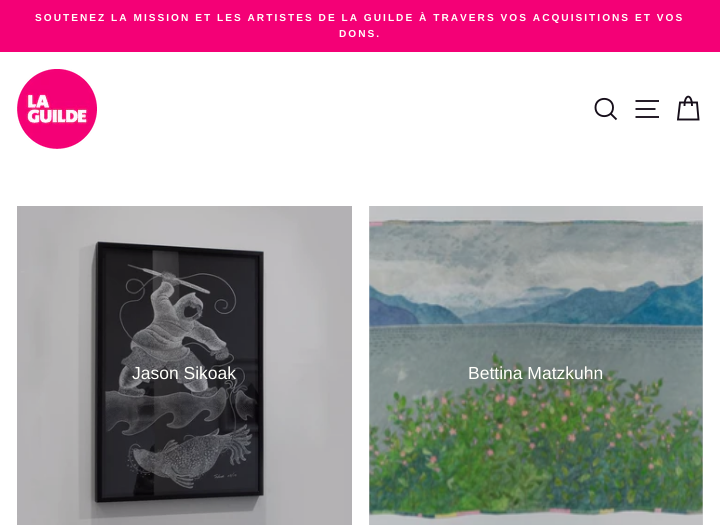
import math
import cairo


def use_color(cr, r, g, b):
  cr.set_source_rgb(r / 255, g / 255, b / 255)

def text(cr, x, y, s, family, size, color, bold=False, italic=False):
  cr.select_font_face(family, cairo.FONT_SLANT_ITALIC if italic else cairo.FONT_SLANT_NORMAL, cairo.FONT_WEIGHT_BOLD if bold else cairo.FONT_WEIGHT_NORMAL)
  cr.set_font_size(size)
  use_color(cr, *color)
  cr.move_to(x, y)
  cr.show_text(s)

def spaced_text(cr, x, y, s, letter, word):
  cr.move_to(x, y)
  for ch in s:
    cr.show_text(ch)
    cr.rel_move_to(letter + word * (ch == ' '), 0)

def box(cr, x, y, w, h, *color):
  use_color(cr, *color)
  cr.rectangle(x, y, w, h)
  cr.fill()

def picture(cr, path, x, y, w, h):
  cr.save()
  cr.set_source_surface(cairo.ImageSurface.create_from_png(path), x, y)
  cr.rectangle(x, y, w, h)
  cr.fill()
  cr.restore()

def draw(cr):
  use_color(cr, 255, 255, 255)
  cr.paint()
  box(cr, 369, 206, 334, 319, 208, 207, 209)
  box(cr, 0, 0, 720, 52, 244, 0, 118)
  picture(cr, "img_01.png", 17, 69, 80, 80)
  cr.new_path()
  cr.move_to(613, 107.5)
  cr.curve_to(613, 119, 595.5, 119, 595.5, 107.5)
  cr.curve_to(595.5, 96, 613, 96, 613, 107.5)
  cr.close_path()
  cr.move_to(616.5, 119.5)
  cr.line_to(610.5, 113.5)
  use_color(cr, 22, 14, 26)
  cr.set_line_width(1.9)
  cr.stroke()
  cr.new_path()
  cr.move_to(635.5, 101)
  cr.line_to(659, 101)
  cr.move_to(635.5, 109)
  cr.line_to(655.5, 109)
  cr.move_to(635.5, 117)
  cr.line_to(659, 117)
  cr.move_to(684.5, 106)
  cr.curve_to(684.5, 93.5, 692, 93.5, 692, 106)
  cr.stroke()
  cr.new_path()
  cr.move_to(680, 102.5)
  cr.line_to(697, 102.5)
  cr.line_to(698.5, 119.5)
  cr.line_to(678, 119.5)
  cr.close_path()
  cr.stroke()
  picture(cr, "img_02.png", 17, 206, 335, 319)
  picture(cr, "img_03.png", 369, 206, 334, 319)
  cr.select_font_face("Liberation Sans", cairo.FONT_SLANT_NORMAL, cairo.FONT_WEIGHT_BOLD)
  cr.set_font_size(10.12)
  use_color(cr, 255, 255, 250)
  spaced_text(cr, 35, 21, "SOUTENEZ LA MISSION ET LES ARTISTES DE LA GUILDE À TRAVERS VOS ACQUISITIONS ET VOS", 2.02, 0)
  spaced_text(cr, 339, 37, "DONS.", 2.02, 0)
  text(cr, 132, 379, "Jason Sikoak", "Liberation Sans", 17.5, (255, 255, 250))
  text(cr, 468, 379, "Bettina Matzkuhn", "Liberation Sans", 17.5, (255, 255, 250))


surface = cairo.ImageSurface(cairo.FORMAT_RGB24, 720, 525)
cr = cairo.Context(surface)
options = cairo.FontOptions()
options.set_hint_metrics(cairo.HINT_METRICS_OFF)
options.set_hint_style(cairo.HINT_STYLE_NONE)
cr.set_font_options(options)
cr.set_miter_limit(4)
draw(cr)
surface.write_to_png("out.png")
